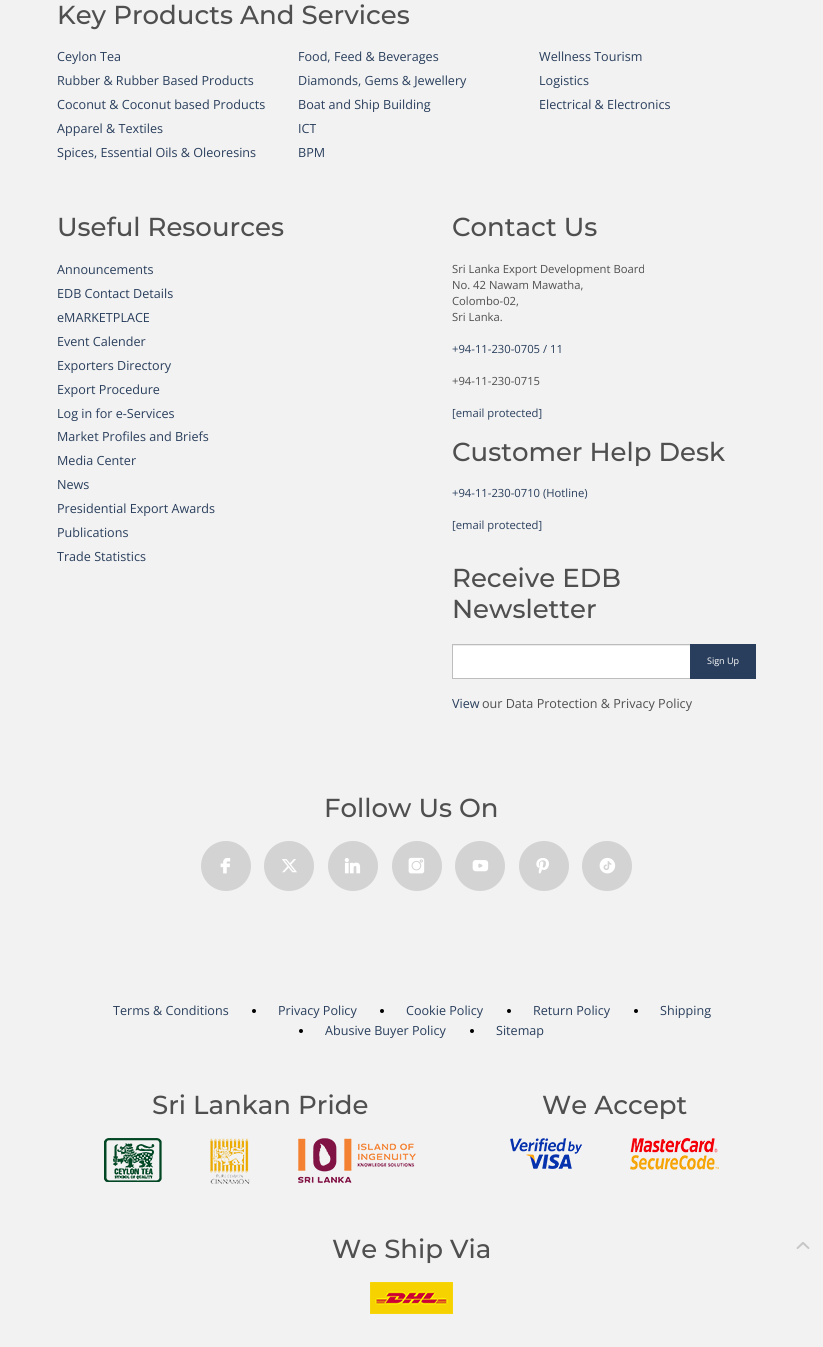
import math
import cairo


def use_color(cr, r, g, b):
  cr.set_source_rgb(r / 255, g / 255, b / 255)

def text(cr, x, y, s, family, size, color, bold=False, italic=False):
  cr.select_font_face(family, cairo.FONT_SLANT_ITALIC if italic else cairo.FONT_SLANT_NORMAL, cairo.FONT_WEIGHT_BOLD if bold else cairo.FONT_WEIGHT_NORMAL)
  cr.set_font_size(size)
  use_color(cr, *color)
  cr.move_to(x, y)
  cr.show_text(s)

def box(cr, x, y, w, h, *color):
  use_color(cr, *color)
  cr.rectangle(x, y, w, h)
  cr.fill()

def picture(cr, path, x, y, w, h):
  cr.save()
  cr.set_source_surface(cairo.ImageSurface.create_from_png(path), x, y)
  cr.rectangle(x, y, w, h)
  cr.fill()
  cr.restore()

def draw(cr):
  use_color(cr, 242, 242, 242)
  cr.paint()
  box(cr, 453, 646, 237, 32, 255, 255, 255)
  box(cr, 453, 645, 237, 1, 236, 236, 236)
  cr.rectangle(452.5, 644.5, 238, 34)
  use_color(cr, 189, 189, 189)
  cr.set_line_width(1)
  cr.stroke()
  box(cr, 690, 644, 66, 35, 41, 62, 92)
  use_color(cr, 211, 211, 211)
  cr.arc(226, 866, 25, 0, 2 * math.pi)
  cr.fill()
  picture(cr, "img_01.png", 220, 858, 11, 16)
  cr.arc(289, 866, 25, 0, 2 * math.pi)
  cr.fill()
  picture(cr, "img_02.png", 282, 859, 15, 14)
  cr.arc(353, 866, 25, 0, 2 * math.pi)
  cr.fill()
  picture(cr, "img_03.png", 344, 858, 17, 16)
  cr.arc(417, 866, 25, 0, 2 * math.pi)
  cr.fill()
  picture(cr, "img_04.png", 408, 857, 17, 17)
  cr.arc(480, 866, 25, 0, 2 * math.pi)
  cr.fill()
  picture(cr, "img_05.png", 472, 860, 17, 12)
  cr.arc(544, 866, 25, 0, 2 * math.pi)
  cr.fill()
  picture(cr, "img_06.png", 536, 858, 13, 16)
  cr.arc(607, 866, 25, 0, 2 * math.pi)
  cr.fill()
  picture(cr, "img_07.png", 599, 857, 17, 17)
  use_color(cr, 0, 0, 0)
  cr.arc(254, 1011, 2, 0, 2 * math.pi)
  cr.fill()
  cr.arc(382, 1011, 2, 0, 2 * math.pi)
  cr.fill()
  cr.arc(509, 1011, 2, 0, 2 * math.pi)
  cr.fill()
  cr.arc(636, 1011, 2, 0, 2 * math.pi)
  cr.fill()
  cr.arc(301, 1031, 2, 0, 2 * math.pi)
  cr.fill()
  cr.arc(472, 1031, 2, 0, 2 * math.pi)
  cr.fill()
  picture(cr, "img_08.png", 104, 1138, 58, 44)
  picture(cr, "img_09.png", 210, 1138, 40, 46)
  picture(cr, "img_10.png", 298, 1138, 118, 45)
  picture(cr, "img_11.png", 510, 1138, 72, 31)
  picture(cr, "img_12.png", 630, 1138, 89, 32)
  picture(cr, "img_13.png", 370, 1282, 83, 32)
  picture(cr, "img_14.png", 796, 1242, 14, 7)
  text(cr, 57, 24, "Key Products And Services", "Montserrat Medium", 26, (79, 79, 79))
  text(cr, 57, 61, "Ceylon Tea", "Open Sans", 12.6, (41, 62, 92))
  text(cr, 298, 61, "Food, Feed & Beverages", "Open Sans", 12.6, (41, 62, 92))
  text(cr, 539, 61, "Wellness Tourism", "Open Sans", 12.6, (41, 62, 92))
  text(cr, 57, 85, "Rubber & Rubber Based Products", "Open Sans", 12.6, (41, 62, 92))
  text(cr, 298, 85, "Diamonds, Gems & Jewellery", "Open Sans", 12.6, (41, 62, 92))
  text(cr, 539, 85, "Logistics", "Open Sans", 12.6, (41, 62, 92))
  text(cr, 57, 109, "Coconut & Coconut based Products", "Open Sans", 12.6, (41, 62, 92))
  text(cr, 298, 109, "Boat and Ship Building", "Open Sans", 12.6, (41, 62, 92))
  text(cr, 539, 109, "Electrical & Electronics", "Open Sans", 12.6, (41, 62, 92))
  text(cr, 57, 133, "Apparel & Textiles", "Open Sans", 12.6, (41, 62, 92))
  text(cr, 298, 133, "ICT", "Open Sans", 12.6, (41, 62, 92))
  text(cr, 57, 157, "Spices, Essential Oils & Oleoresins", "Open Sans", 12.6, (41, 62, 92))
  text(cr, 298, 157, "BPM", "Open Sans", 12.6, (41, 62, 92))
  text(cr, 57, 236, "Useful Resources", "Montserrat Medium", 26, (79, 79, 79))
  text(cr, 57, 274, "Announcements", "Open Sans", 12.6, (41, 62, 92))
  text(cr, 57, 298, "EDB Contact Details", "Open Sans", 12.6, (41, 62, 92))
  text(cr, 57, 322, "eMARKETPLACE", "Open Sans", 12.6, (41, 62, 92))
  text(cr, 57, 346, "Event Calender", "Open Sans", 12.6, (41, 62, 92))
  text(cr, 57, 370, "Exporters Directory", "Open Sans", 12.6, (41, 62, 92))
  text(cr, 57, 394, "Export Procedure", "Open Sans", 12.6, (41, 62, 92))
  text(cr, 57, 418, "Log in for e-Services", "Open Sans", 12.6, (41, 62, 92))
  text(cr, 57, 441, "Market Profiles and Briefs", "Open Sans", 12.6, (41, 62, 92))
  text(cr, 57, 465, "Media Center", "Open Sans", 12.6, (41, 62, 92))
  text(cr, 57, 489, "News", "Open Sans", 12.6, (41, 62, 92))
  text(cr, 57, 513, "Presidential Export Awards", "Open Sans", 12.6, (41, 62, 92))
  text(cr, 57, 537, "Publications", "Open Sans", 12.6, (41, 62, 92))
  text(cr, 57, 561, "Trade Statistics", "Open Sans", 12.6, (41, 62, 92))
  text(cr, 452, 236, "Contact Us", "Montserrat Medium", 26, (79, 79, 79))
  text(cr, 452, 273, "Sri Lanka Export Development Board", "Open Sans", 11.25, (79, 79, 79))
  text(cr, 452, 289, "No. 42 Nawam Mawatha,", "Open Sans", 11.25, (79, 79, 79))
  text(cr, 452, 305, "Colombo-02,", "Open Sans", 11.25, (79, 79, 79))
  text(cr, 452, 321, "Sri Lanka.", "Open Sans", 11.25, (79, 79, 79))
  text(cr, 452, 353, "+94-11-230-0705 / 11", "Open Sans", 11.25, (41, 62, 92))
  text(cr, 452, 385, "+94-11-230-0715", "Open Sans", 11.25, (79, 79, 79))
  text(cr, 452, 417, "[email protected]", "Open Sans", 11.25, (41, 62, 92))
  text(cr, 452, 461, "Customer Help Desk", "Montserrat Medium", 26, (79, 79, 79))
  text(cr, 452, 497, "+94-11-230-0710 (Hotline)", "Open Sans", 11.25, (41, 62, 92))
  text(cr, 452, 529, "[email protected]", "Open Sans", 11.25, (41, 62, 92))
  text(cr, 452, 587, "Receive EDB", "Montserrat Medium", 26, (79, 79, 79))
  text(cr, 452, 618, "Newsletter", "Montserrat Medium", 26, (79, 79, 79))
  text(cr, 707, 664, "Sign Up", "Open Sans", 9, (255, 255, 255))
  text(cr, 452, 708, "View", "Open Sans", 12.6, (41, 62, 92))
  text(cr, 482, 708, "our Data Protection & Privacy Policy", "Open Sans", 12.6, (79, 79, 79))
  text(cr, 324, 817, "Follow Us On", "Montserrat Medium", 26, (79, 79, 79))
  text(cr, 113, 1015, "Terms & Conditions", "Open Sans", 12.6, (41, 62, 92))
  text(cr, 278, 1015, "Privacy Policy", "Open Sans", 12.6, (41, 62, 92))
  text(cr, 406, 1015, "Cookie Policy", "Open Sans", 12.6, (41, 62, 92))
  text(cr, 533, 1015, "Return Policy", "Open Sans", 12.6, (41, 62, 92))
  text(cr, 660, 1015, "Shipping", "Open Sans", 12.6, (41, 62, 92))
  text(cr, 325, 1035, "Abusive Buyer Policy", "Open Sans", 12.6, (41, 62, 92))
  text(cr, 496, 1035, "Sitemap", "Open Sans", 12.6, (41, 62, 92))
  text(cr, 152, 1114, "Sri Lankan Pride", "Montserrat Medium", 26, (79, 79, 79))
  text(cr, 542, 1114, "We Accept", "Montserrat Medium", 26, (79, 79, 79))
  text(cr, 332, 1258, "We Ship Via", "Montserrat Medium", 26, (79, 79, 79))


surface = cairo.ImageSurface(cairo.FORMAT_RGB24, 823, 1347)
cr = cairo.Context(surface)
options = cairo.FontOptions()
options.set_hint_metrics(cairo.HINT_METRICS_OFF)
options.set_hint_style(cairo.HINT_STYLE_NONE)
cr.set_font_options(options)
cr.set_miter_limit(4)
draw(cr)
surface.write_to_png("out.png")
